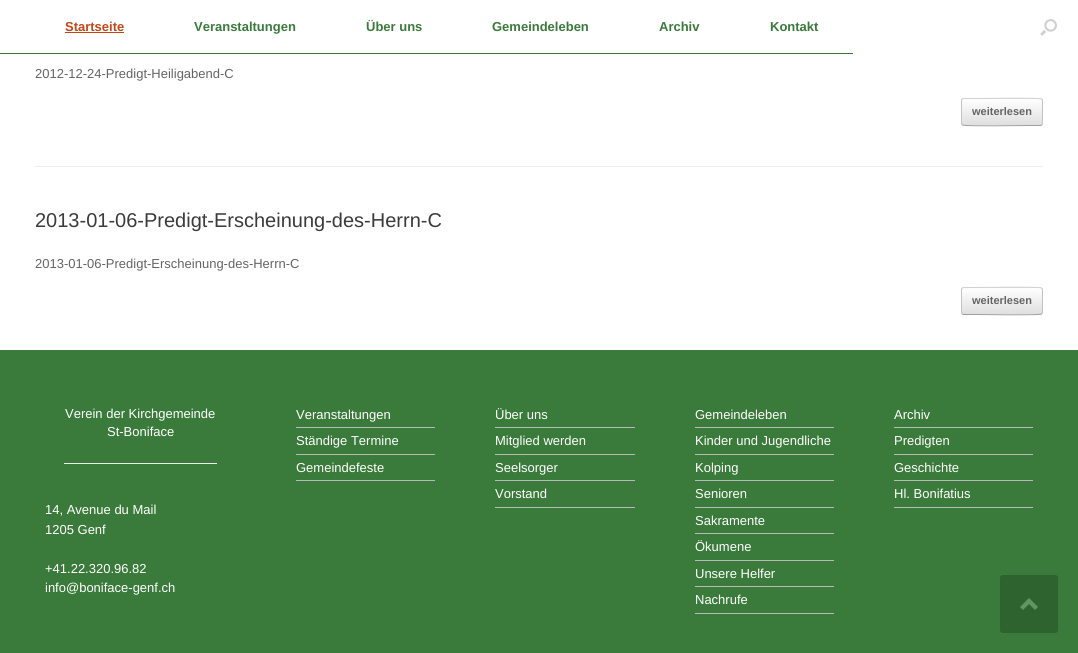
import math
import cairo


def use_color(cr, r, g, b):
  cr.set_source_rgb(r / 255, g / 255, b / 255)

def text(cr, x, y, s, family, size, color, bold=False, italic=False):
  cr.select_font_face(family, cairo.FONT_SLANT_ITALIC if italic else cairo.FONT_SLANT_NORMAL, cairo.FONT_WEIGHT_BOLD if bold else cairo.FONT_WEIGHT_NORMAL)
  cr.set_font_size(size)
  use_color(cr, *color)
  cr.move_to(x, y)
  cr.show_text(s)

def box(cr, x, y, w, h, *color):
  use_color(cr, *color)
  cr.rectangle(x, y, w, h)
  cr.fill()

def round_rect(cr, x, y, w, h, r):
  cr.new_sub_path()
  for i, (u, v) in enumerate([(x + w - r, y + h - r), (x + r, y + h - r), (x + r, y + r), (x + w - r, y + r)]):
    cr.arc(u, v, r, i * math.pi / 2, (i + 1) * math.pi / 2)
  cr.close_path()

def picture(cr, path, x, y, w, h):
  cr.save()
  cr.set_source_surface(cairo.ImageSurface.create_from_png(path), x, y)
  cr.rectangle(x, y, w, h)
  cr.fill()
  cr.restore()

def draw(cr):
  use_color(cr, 255, 255, 255)
  cr.paint()
  box(cr, 0, 53, 853, 1, 58, 122, 58)
  box(cr, 65, 32, 59, 1, 194, 70, 22)
  picture(cr, "img_01.png", 1040, 19, 17, 17)
  box(cr, 35, 166, 1008, 1, 238, 238, 238)
  cr.save()
  round_rect(cr, 961, 98, 82, 28, 3)
  cr.clip()
  gradient = cairo.LinearGradient(962, 99, 962, 73)
  gradient.add_color_stop_rgba(0, 0.875, 0.875, 0.875, 1)
  gradient.add_color_stop_rgba(1, 1, 1, 1, 1)
  cr.set_source(gradient)
  cr.rectangle(961, 98, 82, 1)
  cr.fill()
  gradient = cairo.LinearGradient(962, 125, 962, 99)
  gradient.add_color_stop_rgba(0, 0.875, 0.875, 0.875, 1)
  gradient.add_color_stop_rgba(1, 1, 1, 1, 1)
  cr.set_source(gradient)
  cr.rectangle(961, 99, 82, 26)
  cr.fill()
  cr.restore()
  cr.new_path()
  cr.move_to(962, 99)
  cr.line_to(964, 98.5)
  cr.line_to(976.5, 98.5)
  cr.curve_to(983.5, 98.5, 1039.5, 97.5, 1041.5, 99)
  cr.line_to(1042, 99)
  use_color(cr, 210, 210, 210)
  cr.set_line_width(1)
  cr.stroke()
  cr.new_path()
  cr.move_to(1042, 99)
  cr.curve_to(1042, 99.5, 1042.5, 100.5, 1042.5, 101)
  cr.line_to(1042.5, 123)
  cr.curve_to(1042.5, 123.5, 1042, 124.5, 1042, 125)
  use_color(cr, 195, 195, 195)
  cr.stroke()
  cr.new_path()
  cr.move_to(1042, 125)
  cr.line_to(1040, 125.5)
  cr.line_to(1027.5, 125.5)
  cr.curve_to(1020.5, 125.5, 964.5, 126.5, 962.5, 125)
  cr.line_to(962, 125)
  use_color(cr, 159, 159, 159)
  cr.stroke()
  cr.new_path()
  cr.move_to(962, 125)
  cr.curve_to(962, 124.5, 961.5, 123.5, 961.5, 123)
  cr.line_to(961.5, 101)
  cr.curve_to(961.5, 100.5, 962, 99.5, 962, 99)
  use_color(cr, 195, 195, 195)
  cr.stroke()
  cr.save()
  round_rect(cr, 961, 287, 82, 28, 3)
  cr.clip()
  gradient = cairo.LinearGradient(962, 288, 962, 262)
  gradient.add_color_stop_rgba(0, 0.875, 0.875, 0.875, 1)
  gradient.add_color_stop_rgba(1, 1, 1, 1, 1)
  cr.set_source(gradient)
  cr.rectangle(961, 287, 82, 1)
  cr.fill()
  gradient = cairo.LinearGradient(962, 314, 962, 288)
  gradient.add_color_stop_rgba(0, 0.875, 0.875, 0.875, 1)
  gradient.add_color_stop_rgba(1, 1, 1, 1, 1)
  cr.set_source(gradient)
  cr.rectangle(961, 288, 82, 26)
  cr.fill()
  cr.restore()
  cr.new_path()
  cr.move_to(962, 288)
  cr.line_to(964, 287.5)
  cr.line_to(976.5, 287.5)
  cr.curve_to(983.5, 287.5, 1039.5, 286.5, 1041.5, 288)
  cr.line_to(1042, 288)
  use_color(cr, 210, 210, 210)
  cr.stroke()
  cr.new_path()
  cr.move_to(1042, 288)
  cr.curve_to(1042, 288.5, 1042.5, 289.5, 1042.5, 290)
  cr.line_to(1042.5, 312)
  cr.curve_to(1042.5, 312.5, 1042, 313.5, 1042, 314)
  use_color(cr, 195, 195, 195)
  cr.stroke()
  cr.new_path()
  cr.move_to(1042, 314)
  cr.line_to(1041.5, 314)
  cr.curve_to(1039.5, 315.5, 983.5, 314.5, 976.5, 314.5)
  cr.line_to(964, 314.5)
  cr.line_to(962, 314)
  use_color(cr, 159, 159, 159)
  cr.stroke()
  cr.new_path()
  cr.move_to(962, 314)
  cr.curve_to(962, 313.5, 961.5, 312.5, 961.5, 312)
  cr.line_to(961.5, 290)
  cr.curve_to(961.5, 289.5, 962, 288.5, 962, 288)
  use_color(cr, 195, 195, 195)
  cr.stroke()
  box(cr, 0, 350, 1078, 303, 58, 122, 58)
  box(cr, 64, 463, 153, 1, 238, 238, 238)
  box(cr, 296, 427, 139, 1, 185, 185, 185)
  box(cr, 296, 454, 139, 1, 185, 185, 185)
  box(cr, 296, 480, 139, 1, 185, 185, 185)
  box(cr, 495, 427, 140, 1, 185, 185, 185)
  box(cr, 495, 454, 140, 1, 185, 185, 185)
  box(cr, 495, 480, 140, 1, 185, 185, 185)
  box(cr, 495, 507, 140, 1, 185, 185, 185)
  box(cr, 695, 427, 139, 1, 185, 185, 185)
  box(cr, 695, 454, 139, 1, 185, 185, 185)
  box(cr, 695, 480, 139, 1, 185, 185, 185)
  box(cr, 695, 507, 139, 1, 185, 185, 185)
  box(cr, 695, 533, 139, 1, 185, 185, 185)
  box(cr, 695, 560, 139, 1, 185, 185, 185)
  box(cr, 695, 586, 139, 1, 185, 185, 185)
  box(cr, 695, 613, 139, 1, 185, 185, 185)
  box(cr, 894, 427, 139, 1, 185, 185, 185)
  box(cr, 894, 454, 139, 1, 185, 185, 185)
  box(cr, 894, 480, 139, 1, 185, 185, 185)
  box(cr, 894, 507, 139, 1, 185, 185, 185)
  use_color(cr, 46, 98, 46)
  round_rect(cr, 1000, 575, 58, 58, 3)
  cr.fill()
  use_color(cr, 97, 149, 97)
  cr.new_path()
  cr.move_to(1038, 607)
  cr.line_to(1029, 598)
  cr.line_to(1020, 607)
  cr.line_to(1023, 610)
  cr.line_to(1029, 604)
  cr.line_to(1035, 610)
  cr.close_path()
  cr.fill()
  text(cr, 65, 31, "Startseite", "Liberation Sans", 13, (194, 70, 22), bold=True)
  text(cr, 194, 31, "Veranstaltungen", "Liberation Sans", 13, (58, 122, 58), bold=True)
  text(cr, 366, 31, "Über uns", "Liberation Sans", 13, (58, 122, 58), bold=True)
  text(cr, 492, 31, "Gemeindeleben", "Liberation Sans", 13, (58, 122, 58), bold=True)
  text(cr, 659, 31, "Archiv", "Liberation Sans", 13, (58, 122, 58), bold=True)
  text(cr, 770, 31, "Kontakt", "Liberation Sans", 13, (58, 122, 58), bold=True)
  text(cr, 35, 78, "2012-12-24-Predigt-Heiligabend-C", "Liberation Sans", 13, (100, 100, 100))
  text(cr, 972, 115, "weiterlesen", "Liberation Sans", 11, (100, 100, 100), bold=True)
  text(cr, 35, 227, "2013-01-06-Predigt-Erscheinung-des-Herrn-C", "Liberation Sans", 20, (59, 59, 59))
  text(cr, 35, 268, "2013-01-06-Predigt-Erscheinung-des-Herrn-C", "Liberation Sans", 13, (100, 100, 100))
  text(cr, 972, 304, "weiterlesen", "Liberation Sans", 11, (100, 100, 100), bold=True)
  text(cr, 65, 418, "Verein der Kirchgemeinde", "Liberation Sans", 13, (255, 255, 255))
  text(cr, 107, 436, "St-Boniface", "Liberation Sans", 13, (255, 255, 255))
  text(cr, 45, 514, "14, Avenue du Mail", "Liberation Sans", 13, (255, 255, 255))
  text(cr, 45, 534, "1205 Genf", "Liberation Sans", 13, (255, 255, 255))
  text(cr, 45, 573, "+41.22.320.96.82", "Liberation Sans", 13, (255, 255, 255))
  text(cr, 45, 592, "info@boniface-genf.ch", "Liberation Sans", 13, (255, 255, 255))
  text(cr, 296, 419, "Veranstaltungen", "Liberation Sans", 13, (255, 255, 255))
  text(cr, 296, 445, "Ständige Termine", "Liberation Sans", 13, (255, 255, 255))
  text(cr, 296, 472, "Gemeindefeste", "Liberation Sans", 13, (255, 255, 255))
  text(cr, 495, 419, "Über uns", "Liberation Sans", 13, (255, 255, 255))
  text(cr, 495, 445, "Mitglied werden", "Liberation Sans", 13, (255, 255, 255))
  text(cr, 495, 472, "Seelsorger", "Liberation Sans", 13, (255, 255, 255))
  text(cr, 495, 498, "Vorstand", "Liberation Sans", 13, (255, 255, 255))
  text(cr, 695, 419, "Gemeindeleben", "Liberation Sans", 13, (255, 255, 255))
  text(cr, 695, 445, "Kinder und Jugendliche", "Liberation Sans", 13, (255, 255, 255))
  text(cr, 695, 472, "Kolping", "Liberation Sans", 13, (255, 255, 255))
  text(cr, 695, 498, "Senioren", "Liberation Sans", 13, (255, 255, 255))
  text(cr, 695, 525, "Sakramente", "Liberation Sans", 13, (255, 255, 255))
  text(cr, 695, 551, "Ökumene", "Liberation Sans", 13, (255, 255, 255))
  text(cr, 695, 578, "Unsere Helfer", "Liberation Sans", 13, (255, 255, 255))
  text(cr, 695, 604, "Nachrufe", "Liberation Sans", 13, (255, 255, 255))
  text(cr, 894, 419, "Archiv", "Liberation Sans", 13, (255, 255, 255))
  text(cr, 894, 445, "Predigten", "Liberation Sans", 13, (255, 255, 255))
  text(cr, 894, 472, "Geschichte", "Liberation Sans", 13, (255, 255, 255))
  text(cr, 894, 498, "Hl. Bonifatius", "Liberation Sans", 13, (255, 255, 255))


surface = cairo.ImageSurface(cairo.FORMAT_RGB24, 1078, 653)
cr = cairo.Context(surface)
options = cairo.FontOptions()
options.set_hint_metrics(cairo.HINT_METRICS_OFF)
options.set_hint_style(cairo.HINT_STYLE_NONE)
cr.set_font_options(options)
cr.set_miter_limit(4)
draw(cr)
surface.write_to_png("out.png")
